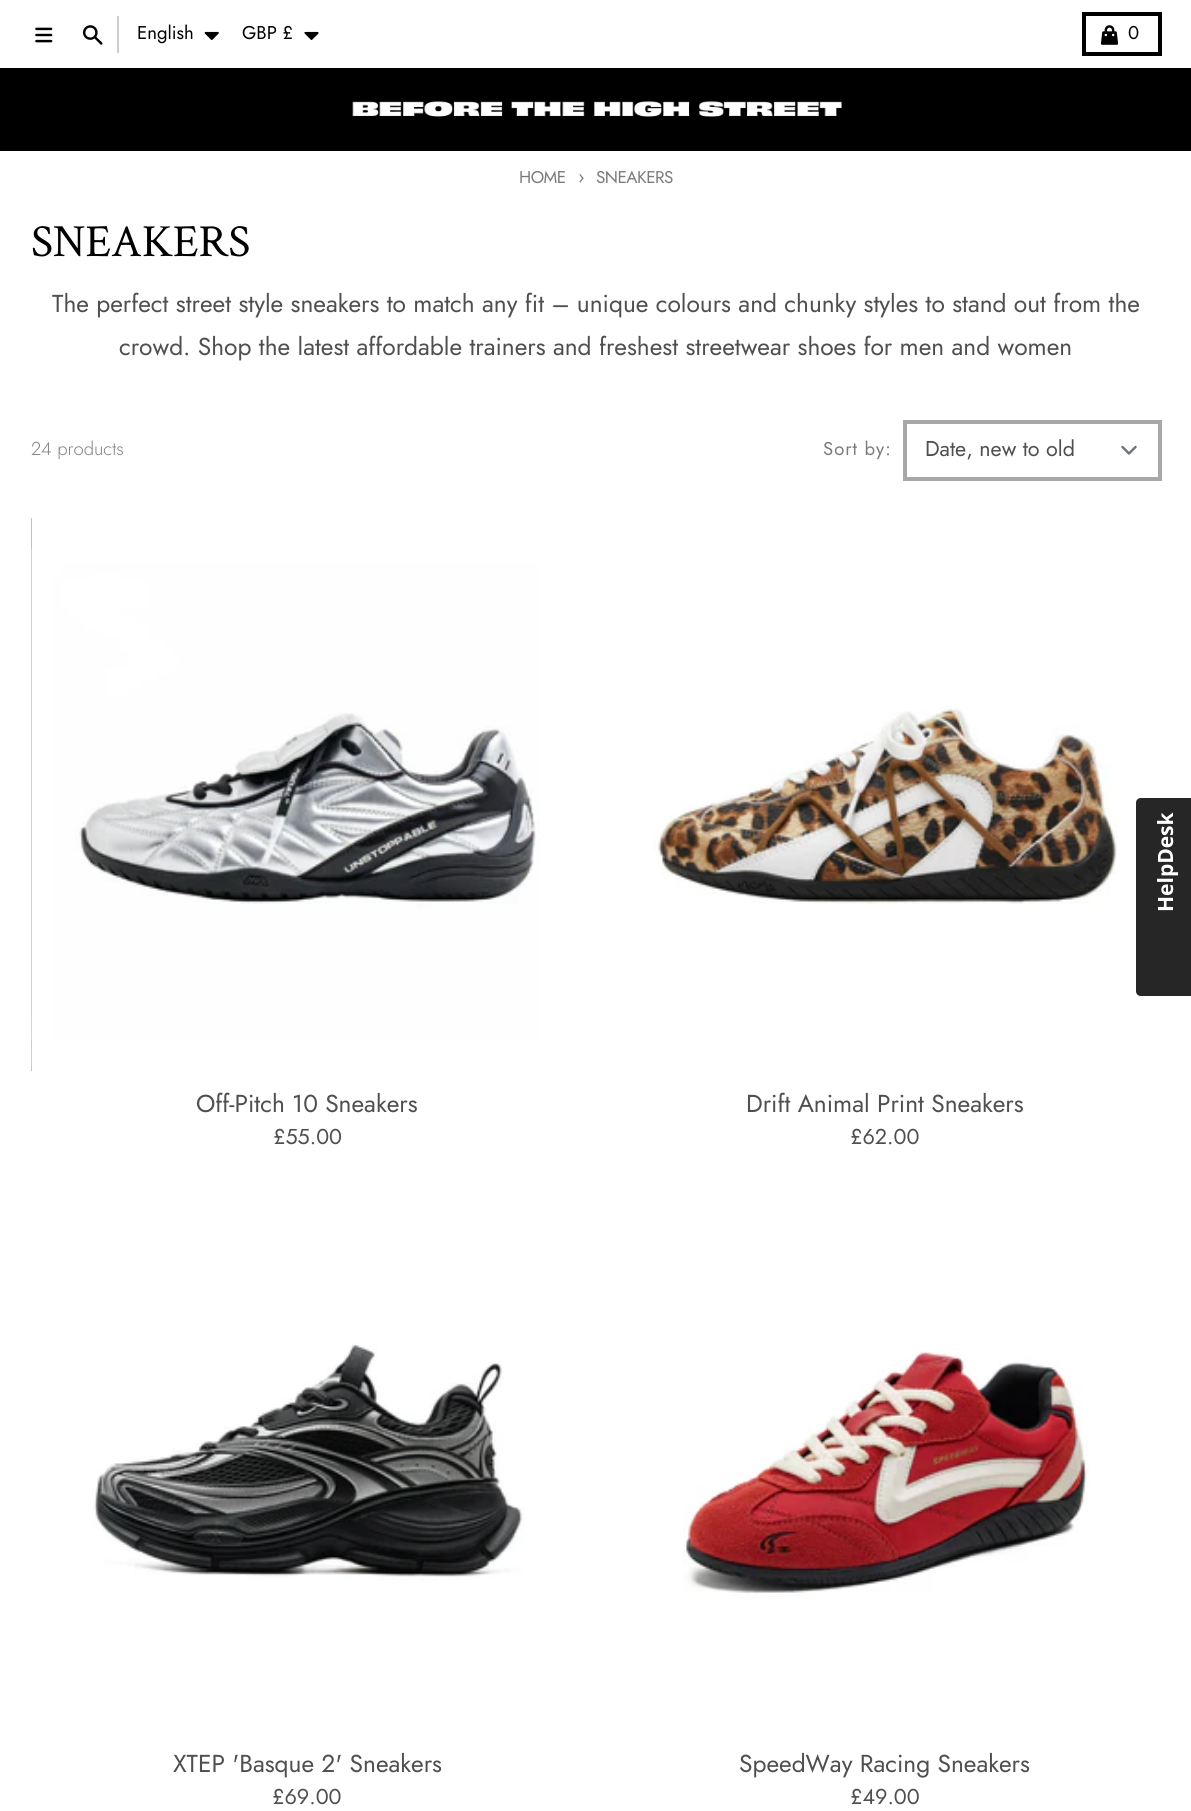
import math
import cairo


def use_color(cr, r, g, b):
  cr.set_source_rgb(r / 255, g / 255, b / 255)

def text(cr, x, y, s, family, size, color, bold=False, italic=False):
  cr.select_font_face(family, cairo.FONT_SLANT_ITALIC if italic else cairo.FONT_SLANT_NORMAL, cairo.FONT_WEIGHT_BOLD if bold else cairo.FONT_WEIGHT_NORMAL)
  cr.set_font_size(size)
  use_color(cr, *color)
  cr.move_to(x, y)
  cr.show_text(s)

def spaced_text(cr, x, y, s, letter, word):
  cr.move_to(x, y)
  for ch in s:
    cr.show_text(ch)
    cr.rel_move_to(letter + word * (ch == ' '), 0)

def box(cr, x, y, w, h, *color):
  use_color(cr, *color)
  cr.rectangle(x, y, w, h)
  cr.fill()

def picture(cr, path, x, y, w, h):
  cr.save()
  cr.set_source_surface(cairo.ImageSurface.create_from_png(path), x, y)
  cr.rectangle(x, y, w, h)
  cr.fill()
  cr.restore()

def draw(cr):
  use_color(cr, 255, 255, 255)
  cr.paint()
  picture(cr, "img_01.png", 35, 27, 18, 16)
  picture(cr, "img_02.png", 82, 25, 21, 20)
  box(cr, 117, 16, 2, 37, 204, 204, 204)
  picture(cr, "img_03.png", 204, 31, 15, 9)
  picture(cr, "img_04.png", 304, 31, 15, 9)
  cr.rectangle(1084, 14, 76, 40)
  use_color(cr, 0, 0, 0)
  cr.set_line_width(4)
  cr.stroke()
  picture(cr, "img_05.png", 1100, 25, 19, 20)
  box(cr, 0, 68, 1191, 83, 0, 0, 0)
  picture(cr, "img_06.png", 352, 101, 490, 16)
  cr.new_path()
  cr.move_to(1122.5, 447)
  cr.line_to(1129, 453.5)
  cr.line_to(1135.5, 447)
  use_color(cr, 107, 114, 128)
  cr.set_line_width(2.4)
  cr.set_line_cap(cairo.LINE_CAP_ROUND)
  cr.set_line_join(cairo.LINE_JOIN_ROUND)
  cr.stroke()
  cr.rectangle(905, 422, 255, 57)
  use_color(cr, 167, 167, 167)
  cr.set_line_width(4)
  cr.set_line_cap(cairo.LINE_CAP_BUTT)
  cr.set_line_join(cairo.LINE_JOIN_MITER)
  cr.stroke()
  picture(cr, "img_07.png", 31, 518, 1, 553)
  picture(cr, "img_08.png", 31, 549, 509, 491)
  picture(cr, "img_09.png", 653, 707, 464, 197)
  picture(cr, "img_10.png", 91, 1343, 434, 238)
  picture(cr, "img_11.png", 683, 1350, 408, 248)
  use_color(cr, 38, 38, 38)
  cr.new_path()
  cr.move_to(1141, 798)
  cr.line_to(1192, 798)
  cr.line_to(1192, 996)
  cr.line_to(1141, 996)
  cr.curve_to(1138, 996, 1136, 994, 1136, 991)
  cr.line_to(1136, 803)
  cr.curve_to(1136, 800, 1138, 798, 1141, 798)
  cr.close_path()
  cr.fill()
  text(cr, 137, 39, "English", "Jost", 18.5, (0, 0, 0))
  text(cr, 242, 39, "GBP £", "Jost", 18.5, (0, 0, 0))
  text(cr, 1128, 39, "0", "Jost", 18.5, (0, 0, 0))
  cr.set_font_size(17)
  use_color(cr, 123, 123, 123)
  spaced_text(cr, 519, 183, "HOME", -0.5, 0)
  cr.set_font_size(18.5)
  spaced_text(cr, 578, 183, "›", -0.5, 0)
  cr.set_font_size(17)
  spaced_text(cr, 596, 183, "SNEAKERS", -0.5, 0)
  text(cr, 31, 256, "SNEAKERS", "Crimson Text", 46, (0, 0, 0))
  text(cr, 52, 312, "The perfect street style sneakers to match any fit – unique colours and chunky styles to stand out from the", "Jost", 24.5, (79, 79, 79))
  text(cr, 119, 355, "crowd. Shop the latest affordable trainers and freshest streetwear shoes for men and women", "Jost", 24.5, (79, 79, 79))
  text(cr, 31, 455, "24 products", "Jost Light", 18.5, (132, 132, 132))
  cr.select_font_face("Jost")
  use_color(cr, 123, 123, 123)
  spaced_text(cr, 823, 455, "Sort by:", 1, 0)
  text(cr, 925, 456, "Date, new to old", "Jost", 21.5, (79, 79, 79))
  text(cr, 196, 1112, "Off-Pitch 10 Sneakers", "Jost", 24.5, (79, 79, 79))
  text(cr, 273, 1144, "£55.00", "Jost", 21.5, (79, 79, 79))
  text(cr, 746, 1112, "Drift Animal Print Sneakers", "Jost", 24.5, (79, 79, 79))
  text(cr, 850, 1144, "£62.00", "Jost", 21.5, (79, 79, 79))
  text(cr, 173, 1772, "XTEP 'Basque 2' Sneakers", "Jost", 24.5, (79, 79, 79))
  text(cr, 272, 1804, "£69.00", "Jost", 21.5, (79, 79, 79))
  text(cr, 739, 1772, "SpeedWay Racing Sneakers", "Jost", 24.5, (79, 79, 79))
  text(cr, 850, 1804, "£49.00", "Jost", 21.5, (79, 79, 79))
  cr.save()
  cr.translate(1173, 912)
  cr.rotate(-90 * math.pi / 180)
  text(cr, 0, 0, "HelpDesk", "Open Sans", 21, (255, 255, 255), bold=True)
  cr.restore()


surface = cairo.ImageSurface(cairo.FORMAT_RGB24, 1191, 1811)
cr = cairo.Context(surface)
options = cairo.FontOptions()
options.set_hint_metrics(cairo.HINT_METRICS_OFF)
options.set_hint_style(cairo.HINT_STYLE_NONE)
cr.set_font_options(options)
cr.set_miter_limit(4)
draw(cr)
surface.write_to_png("out.png")
